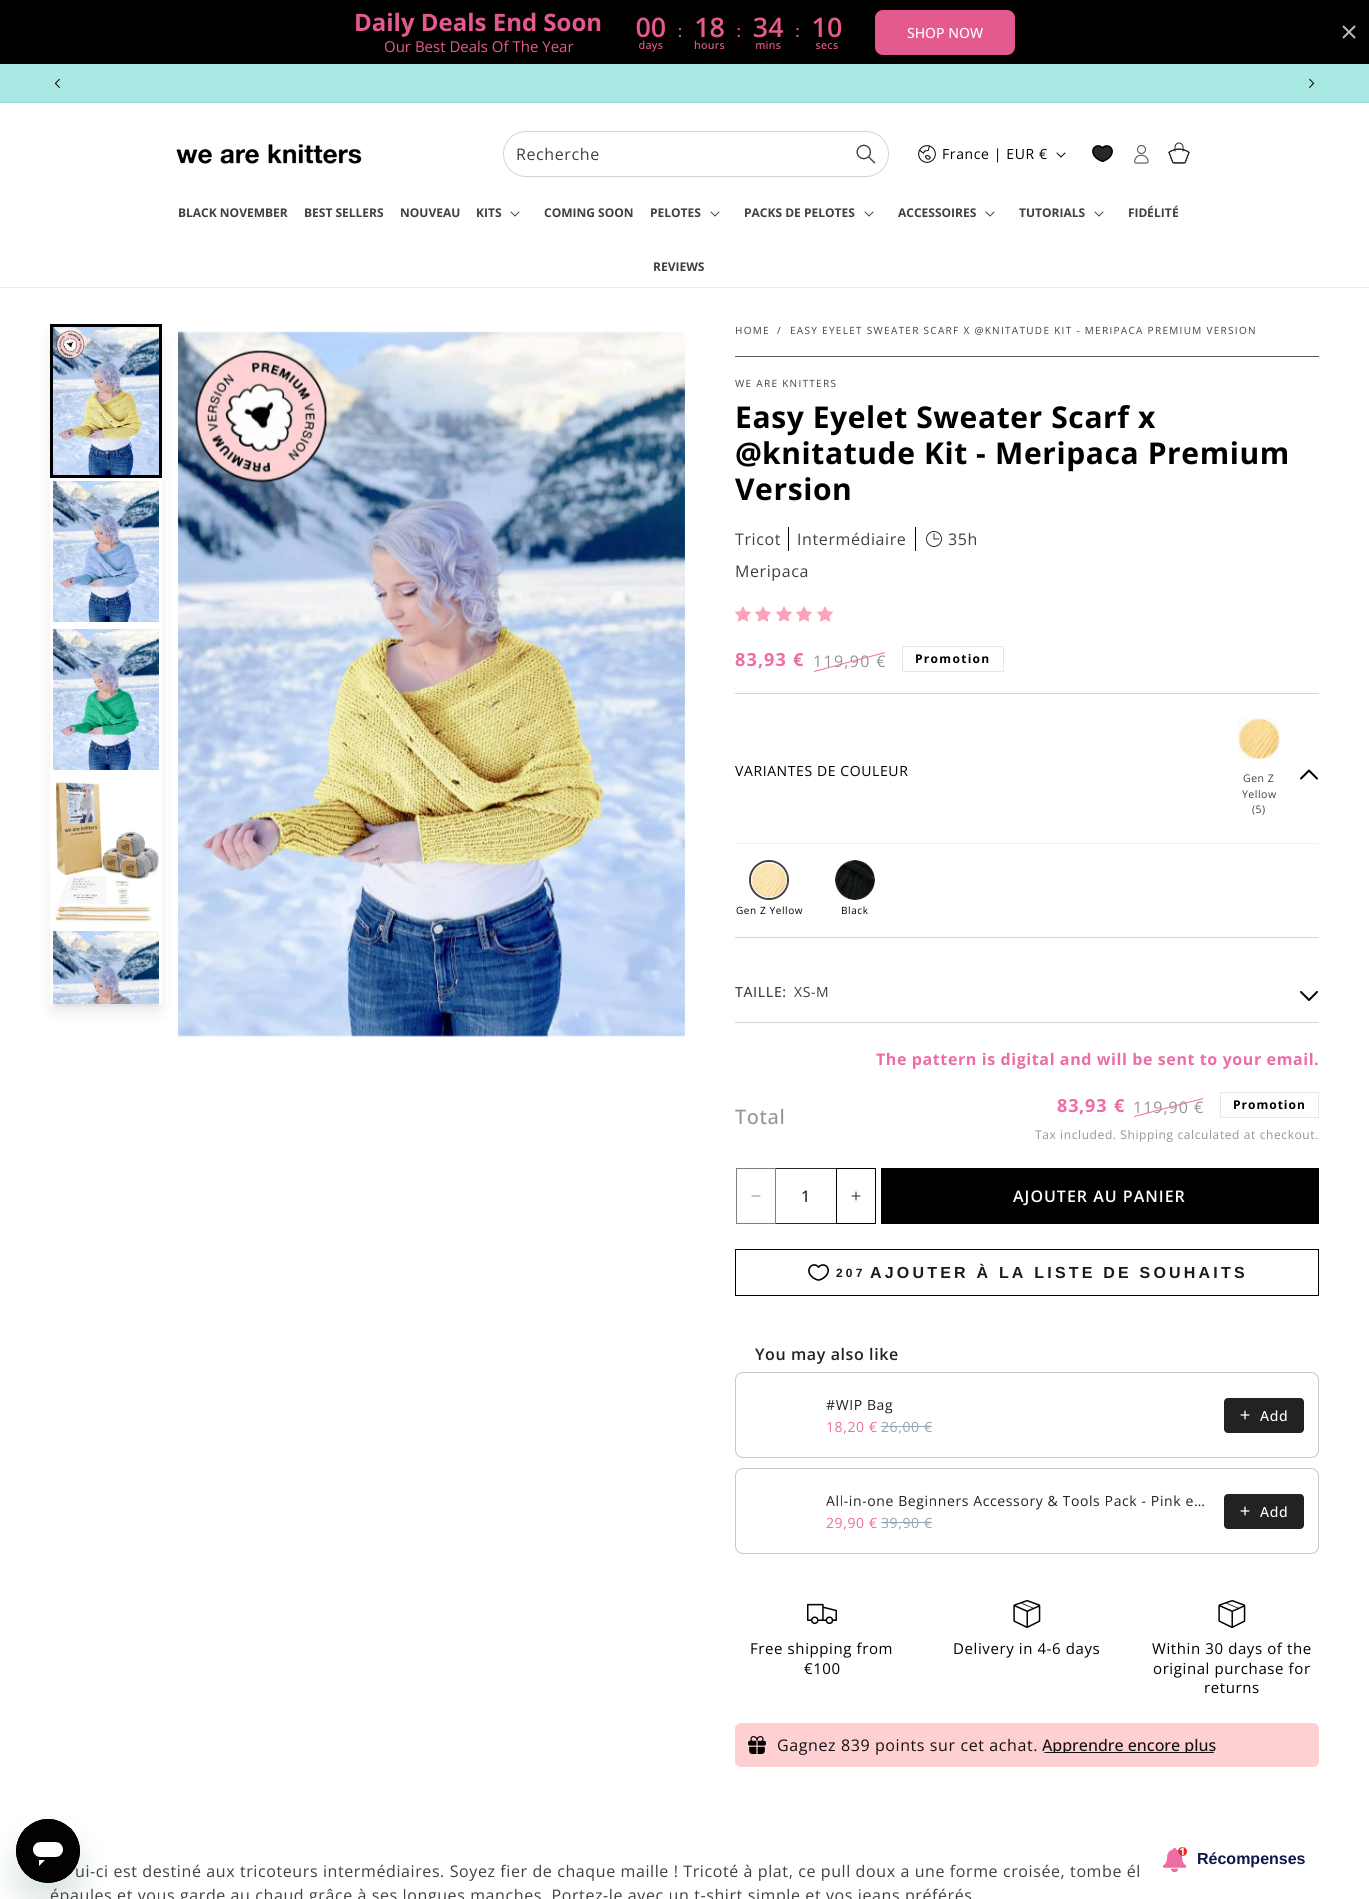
import math
import cairo


def use_color(cr, r, g, b):
  cr.set_source_rgb(r / 255, g / 255, b / 255)

def text(cr, x, y, s, family, size, color, bold=False, italic=False):
  cr.select_font_face(family, cairo.FONT_SLANT_ITALIC if italic else cairo.FONT_SLANT_NORMAL, cairo.FONT_WEIGHT_BOLD if bold else cairo.FONT_WEIGHT_NORMAL)
  cr.set_font_size(size)
  use_color(cr, *color)
  cr.move_to(x, y)
  cr.show_text(s)

def spaced_text(cr, x, y, s, letter, word):
  cr.move_to(x, y)
  for ch in s:
    cr.show_text(ch)
    cr.rel_move_to(letter + word * (ch == ' '), 0)

def box(cr, x, y, w, h, *color):
  use_color(cr, *color)
  cr.rectangle(x, y, w, h)
  cr.fill()

def round_rect(cr, x, y, w, h, r):
  cr.new_sub_path()
  for i, (u, v) in enumerate([(x + w - r, y + h - r), (x + r, y + h - r), (x + r, y + r), (x + w - r, y + r)]):
    cr.arc(u, v, r, i * math.pi / 2, (i + 1) * math.pi / 2)
  cr.close_path()

def shadow(cr, x, y, w, h, r, blur, alpha):
  cr.push_group_with_content(cairo.CONTENT_ALPHA)
  cr.set_operator(cairo.OPERATOR_SOURCE)
  for i in range(15, -16, -2):
    e = blur * i / 6
    if min(w, h) + 2 * e > 0:
      cr.set_source_rgba(0, 0, 0, alpha * math.erfc((i - 1) / 8.5) / 2)
      round_rect(cr, x - e, y - e, w + 2 * e, h + 2 * e, max(0, min(r + e + blur * .6, min(w, h) / 2 + e)))
      cr.fill()
  cr.mask(cr.pop_group())

def picture(cr, path, x, y, w, h):
  cr.save()
  cr.set_source_surface(cairo.ImageSurface.create_from_png(path), x, y)
  cr.rectangle(x, y, w, h)
  cr.fill()
  cr.restore()

def draw(cr):
  use_color(cr, 255, 255, 255)
  cr.paint()
  box(cr, 0, 0, 1369, 64, 0, 0, 0)
  picture(cr, "img_01.png", 636, 17, 206, 35)
  use_color(cr, 228, 89, 142)
  round_rect(cr, 875, 10, 140, 45, 8)
  cr.fill()
  picture(cr, "img_02.png", 1342, 25, 14, 14)
  box(cr, 0, 64, 1369, 38, 168, 232, 226)
  box(cr, 0, 102, 1369, 1, 156, 215, 209)
  picture(cr, "img_03.png", 54, 78, 6, 10)
  picture(cr, "img_04.png", 1309, 78, 6, 10)
  box(cr, 0, 287, 1369, 1, 235, 235, 235)
  picture(cr, "img_05.png", 176, 144, 186, 20)
  round_rect(cr, 503.5, 131.5, 385, 45, 22.5)
  use_color(cr, 209, 213, 219)
  cr.set_line_width(1)
  cr.stroke()
  picture(cr, "img_06.png", 856, 144, 20, 20)
  picture(cr, "img_07.png", 918, 145, 18, 18)
  picture(cr, "img_08.png", 1056, 152, 10, 6)
  picture(cr, "img_09.png", 1092, 145, 21, 17)
  picture(cr, "img_10.png", 1134, 144, 15, 20)
  picture(cr, "img_11.png", 1168, 142, 22, 22)
  picture(cr, "img_12.png", 510, 211, 10, 6)
  picture(cr, "img_12.png", 710, 211, 10, 6)
  picture(cr, "img_12.png", 864, 211, 10, 6)
  picture(cr, "img_12.png", 985, 211, 10, 6)
  picture(cr, "img_12.png", 1094, 211, 10, 6)
  cr.save()
  cr.rectangle(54, 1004, 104, 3)
  cr.clip()
  use_color(cr, 0, 0, 0)
  shadow(cr, 54, 332, 104, 672, 0, 3, 0.1)
  cr.restore()
  picture(cr, "img_18.png", 178, 331, 507, 706)
  cr.save()
  cr.set_fill_rule(cairo.FILL_RULE_EVEN_ODD)
  cr.new_path()
  cr.move_to(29, 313)
  cr.line_to(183, 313)
  cr.line_to(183, 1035)
  cr.line_to(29, 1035)
  cr.close_path()
  cr.move_to(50, 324)
  cr.line_to(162, 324)
  cr.line_to(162, 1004)
  cr.line_to(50, 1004)
  cr.close_path()
  cr.clip()
  use_color(cr, 0, 0, 0)
  shadow(cr, 53, 337, 106, 674, 0, 7.5, 0.1)
  cr.restore()
  cr.rectangle(51.5, 325.5, 109, 151)
  use_color(cr, 0, 0, 0)
  cr.set_line_width(3)
  cr.stroke()
  picture(cr, "img_13.png", 53, 327, 106, 148)
  picture(cr, "img_14.png", 53, 481, 106, 141)
  picture(cr, "img_15.png", 53, 629, 106, 141)
  picture(cr, "img_16.png", 53, 782, 106, 142)
  picture(cr, "img_17.png", 53, 931, 106, 73)
  box(cr, 735, 356, 584, 1, 89, 90, 92)
  box(cr, 788, 527, 1, 24, 0, 0, 0)
  box(cr, 915, 527, 1, 24, 0, 0, 0)
  picture(cr, "img_19.png", 926, 531, 16, 16)
  picture(cr, "img_20.png", 735, 606, 16, 16)
  picture(cr, "img_20.png", 755, 606, 16, 16)
  picture(cr, "img_20.png", 776, 606, 16, 16)
  picture(cr, "img_20.png", 796, 606, 16, 16)
  picture(cr, "img_20.png", 817, 606, 16, 16)
  cr.rectangle(902.5, 646.5, 101, 25)
  use_color(cr, 229, 231, 235)
  cr.set_line_width(1)
  cr.stroke()
  box(cr, 735, 693, 584, 1, 209, 213, 219)
  box(cr, 735, 937, 584, 1, 209, 213, 219)
  picture(cr, "img_21.png", 1238, 717, 42, 43)
  picture(cr, "img_22.png", 1300, 769, 18, 11)
  box(cr, 735, 843, 584, 1, 243, 244, 246)
  cr.arc(769, 880, 19, 0, 2 * math.pi)
  use_color(cr, 64, 64, 64)
  cr.set_line_width(2)
  cr.stroke()
  picture(cr, "img_23.png", 751, 862, 36, 36)
  picture(cr, "img_24.png", 835, 860, 40, 40)
  box(cr, 735, 1022, 584, 1, 209, 213, 219)
  picture(cr, "img_25.png", 1300, 991, 18, 10)
  cr.rectangle(1220.5, 1092.5, 98, 25)
  use_color(cr, 229, 231, 235)
  cr.set_line_width(1)
  cr.stroke()
  cr.rectangle(736.5, 1168.5, 39, 55)
  use_color(cr, 128, 128, 128)
  cr.stroke()
  picture(cr, "img_26.png", 751, 1195, 10, 2)
  box(cr, 776, 1168, 60, 1, 38, 38, 38)
  box(cr, 776, 1223, 60, 1, 38, 38, 38)
  cr.rectangle(836.5, 1168.5, 39, 55)
  use_color(cr, 0, 0, 0)
  cr.stroke()
  picture(cr, "img_27.png", 851, 1191, 10, 10)
  box(cr, 881, 1168, 438, 56, 0, 0, 0)
  cr.rectangle(735.5, 1249.5, 583, 46)
  cr.stroke()
  cr.new_path()
  cr.move_to(818, 1266.5)
  cr.line_to(818.5, 1267)
  cr.curve_to(825.5, 1260.5, 833.5, 1271, 823.5, 1278)
  cr.curve_to(822, 1279, 820, 1280, 818.5, 1280)
  cr.curve_to(817, 1280, 815, 1279, 813.5, 1278)
  cr.curve_to(803.5, 1271, 812, 1261, 818, 1266.5)
  cr.close_path()
  cr.set_line_width(1.6)
  cr.stroke()
  round_rect(cr, 735.5, 1372.5, 583, 85, 7.5)
  use_color(cr, 197, 200, 209)
  cr.set_line_width(1)
  cr.stroke()
  box(cr, 881, 1426, 51, 1, 150, 164, 182)
  use_color(cr, 32, 34, 35)
  round_rect(cr, 1224, 1398, 80, 35, 4)
  cr.fill()
  picture(cr, "img_28.png", 1240, 1410, 10, 10)
  round_rect(cr, 735.5, 1468.5, 583, 85, 7.5)
  use_color(cr, 197, 200, 209)
  cr.stroke()
  box(cr, 881, 1522, 51, 1, 150, 164, 182)
  use_color(cr, 32, 34, 35)
  round_rect(cr, 1224, 1494, 80, 35, 4)
  cr.fill()
  picture(cr, "img_28.png", 1240, 1506, 10, 10)
  picture(cr, "img_29.png", 807, 1603, 30, 22)
  picture(cr, "img_30.png", 1013, 1600, 28, 28)
  picture(cr, "img_30.png", 1218, 1600, 28, 28)
  use_color(cr, 254, 208, 210)
  round_rect(cr, 735, 1723, 584, 44, 6)
  cr.fill()
  picture(cr, "img_31.png", 748, 1736, 18, 18)
  cr.save()
  round_rect(cr, 1042, 1737, 174, 16, 4)
  cr.clip()
  box(cr, 1042, 1752, 174, 1, 18, 18, 18)
  cr.restore()
  use_color(cr, 23, 73, 77)
  shadow(cr, 16, 1839, 64, 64, 32, 15, 0.15)
  picture(cr, "img_33.png", 1163, 1847, 24, 25)
  text(cr, 354, 31, "Daily Deals End Soon", "Open Sans", 24, (228, 89, 142), bold=True)
  text(cr, 384, 52, "Our Best Deals Of The Year", "Open Sans", 15, (228, 89, 142))
  text(cr, 907, 38, "SHOP NOW", "Open Sans Medium", 14, (255, 255, 255))
  cr.select_font_face("Open Sans")
  cr.set_font_size(16)
  use_color(cr, 64, 64, 64)
  spaced_text(cr, 516, 160, "Recherche", 0.6, 0)
  cr.set_font_size(14)
  use_color(cr, 0, 0, 0)
  spaced_text(cr, 942, 159, "France | EUR €", 0.6, 0)
  text(cr, 178, 217, "BLACK NOVEMBER", "Open Sans", 12, (64, 64, 64), bold=True)
  text(cr, 304, 217, "BEST SELLERS", "Open Sans", 12, (64, 64, 64), bold=True)
  text(cr, 400, 217, "NOUVEAU", "Open Sans", 12, (64, 64, 64), bold=True)
  text(cr, 476, 217, "KITS", "Open Sans", 12, (64, 64, 64), bold=True)
  text(cr, 544, 217, "COMING SOON", "Open Sans", 12, (64, 64, 64), bold=True)
  text(cr, 650, 217, "PELOTES", "Open Sans", 12, (64, 64, 64), bold=True)
  text(cr, 744, 217, "PACKS DE PELOTES", "Open Sans", 12, (64, 64, 64), bold=True)
  text(cr, 898, 217, "ACCESSOIRES", "Open Sans", 12, (64, 64, 64), bold=True)
  text(cr, 1019, 217, "TUTORIALS", "Open Sans", 12, (64, 64, 64), bold=True)
  text(cr, 1128, 217, "FID", "Open Sans", 12, (64, 64, 64), bold=True)
  text(cr, 1147, 217, "É", "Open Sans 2", 12, (64, 64, 64), bold=True)
  text(cr, 1154, 217, "LIT", "Open Sans", 12, (64, 64, 64), bold=True)
  text(cr, 1172, 217, "É", "Open Sans 2", 12, (64, 64, 64), bold=True)
  text(cr, 653, 271, "REVIEWS", "Open Sans", 12, (64, 64, 64), bold=True)
  cr.select_font_face("Open Sans")
  cr.set_font_size(10)
  spaced_text(cr, 735, 334, "HOME", 1.3, 0)
  spaced_text(cr, 777, 334, "/", 1.3, 0)
  spaced_text(cr, 790, 334, "EASY EYELET SWEATER SCARF X @KNITATUDE KIT - MERIPACA PREMIUM VERSION", 1.3, 0)
  spaced_text(cr, 735, 387, "WE ARE KNITTERS", 1.3, 0)
  cr.select_font_face("Open Sans", cairo.FONT_SLANT_NORMAL, cairo.FONT_WEIGHT_BOLD)
  cr.set_font_size(30)
  use_color(cr, 0, 0, 0)
  spaced_text(cr, 735, 428, "Easy Eyelet Sweater Scarf x", 0.6, 0)
  cr.select_font_face("Open Sans 2", cairo.FONT_SLANT_NORMAL, cairo.FONT_WEIGHT_BOLD)
  spaced_text(cr, 735, 464, "@", 0.6, 0)
  cr.select_font_face("Open Sans", cairo.FONT_SLANT_NORMAL, cairo.FONT_WEIGHT_BOLD)
  spaced_text(cr, 762, 464, "knitatude Kit", 0.6, 0)
  cr.select_font_face("Open Sans 2", cairo.FONT_SLANT_NORMAL, cairo.FONT_WEIGHT_BOLD)
  spaced_text(cr, 976, 464, "-", 0.6, 0)
  cr.select_font_face("Open Sans", cairo.FONT_SLANT_NORMAL, cairo.FONT_WEIGHT_BOLD)
  spaced_text(cr, 995, 464, "Meripaca Premium", 0.6, 0)
  spaced_text(cr, 735, 500, "Version", 0.6, 0)
  cr.select_font_face("Open Sans")
  cr.set_font_size(16)
  use_color(cr, 64, 64, 64)
  spaced_text(cr, 735, 545, "Tricot", 0.6, 0)
  spaced_text(cr, 797, 545, "Intermédiaire", 0.6, 0)
  spaced_text(cr, 948, 545, "35h", 0.6, 0)
  spaced_text(cr, 735, 577, "Meripaca", 0.6, 0)
  cr.select_font_face("Open Sans", cairo.FONT_SLANT_NORMAL, cairo.FONT_WEIGHT_BOLD)
  cr.set_font_size(18)
  use_color(cr, 237, 108, 165)
  spaced_text(cr, 735, 666, "83", 1.3, 0)
  cr.select_font_face("Open Sans 2", cairo.FONT_SLANT_NORMAL, cairo.FONT_WEIGHT_BOLD)
  spaced_text(cr, 758, 666, ",", 1.3, 0)
  cr.select_font_face("Open Sans", cairo.FONT_SLANT_NORMAL, cairo.FONT_WEIGHT_BOLD)
  spaced_text(cr, 764, 666, "93", 1.3, 0)
  cr.select_font_face("Open Sans 2", cairo.FONT_SLANT_NORMAL, cairo.FONT_WEIGHT_BOLD)
  spaced_text(cr, 793, 666, "€", 1.3, 0)
  cr.select_font_face("Open Sans")
  cr.set_font_size(16)
  use_color(cr, 149, 149, 149)
  spaced_text(cr, 813, 667, "119,90 €", 1.3, 0)
  use_color(cr, 237, 108, 165)
  cr.new_path()
  cr.move_to(814, 671)
  cr.line_to(885, 652)
  cr.line_to(885, 653)
  cr.line_to(814, 672)
  cr.close_path()
  cr.fill()
  cr.select_font_face("Open Sans", cairo.FONT_SLANT_NORMAL, cairo.FONT_WEIGHT_BOLD)
  cr.set_font_size(12)
  use_color(cr, 0, 0, 0)
  spaced_text(cr, 915, 663, "Promotion", 1.3, 0)
  cr.select_font_face("Open Sans")
  cr.set_font_size(14)
  spaced_text(cr, 735, 776, "VARIANTES DE COULEUR", 0.6, 0)
  cr.set_font_size(10.5)
  use_color(cr, 64, 64, 64)
  spaced_text(cr, 1243, 782, "Gen Z", 0.5, 0)
  spaced_text(cr, 1242, 798, "Yellow", 0.5, 0)
  spaced_text(cr, 1252, 813, "(5)", 0.5, 0)
  cr.set_font_size(10)
  use_color(cr, 0, 0, 0)
  spaced_text(cr, 736, 914, "Gen Z Yellow", 0.6, 0)
  spaced_text(cr, 841, 914, "Black", 0.6, 0)
  cr.select_font_face("Open Sans Medium")
  cr.set_font_size(14)
  use_color(cr, 64, 64, 64)
  spaced_text(cr, 735, 997, "TAILLE:", 0.6, 0)
  cr.select_font_face("Open Sans")
  spaced_text(cr, 794, 997, "XS-M", 0.6, 0)
  cr.select_font_face("Open Sans", cairo.FONT_SLANT_NORMAL, cairo.FONT_WEIGHT_BOLD)
  cr.set_font_size(16)
  use_color(cr, 237, 108, 165)
  spaced_text(cr, 876, 1065, "The pattern is digital and will be sent to your email", 0.6, 0)
  cr.select_font_face("Open Sans 2", cairo.FONT_SLANT_NORMAL, cairo.FONT_WEIGHT_BOLD)
  spaced_text(cr, 1314, 1065, ".", 0.6, 0)
  cr.select_font_face("Open Sans Medium")
  cr.set_font_size(20)
  use_color(cr, 149, 149, 149)
  spaced_text(cr, 735, 1124, "Total", 0.6, 0)
  cr.select_font_face("Open Sans", cairo.FONT_SLANT_NORMAL, cairo.FONT_WEIGHT_BOLD)
  cr.set_font_size(18)
  use_color(cr, 237, 108, 165)
  spaced_text(cr, 1057, 1112, "83", 1, 0)
  cr.select_font_face("Open Sans 2", cairo.FONT_SLANT_NORMAL, cairo.FONT_WEIGHT_BOLD)
  spaced_text(cr, 1079, 1112, ",", 1, 0)
  cr.select_font_face("Open Sans", cairo.FONT_SLANT_NORMAL, cairo.FONT_WEIGHT_BOLD)
  spaced_text(cr, 1085, 1112, "93", 1, 0)
  cr.select_font_face("Open Sans 2", cairo.FONT_SLANT_NORMAL, cairo.FONT_WEIGHT_BOLD)
  spaced_text(cr, 1114, 1112, "€", 1, 0)
  cr.select_font_face("Open Sans")
  cr.set_font_size(16)
  use_color(cr, 149, 149, 149)
  spaced_text(cr, 1133, 1113, "119,90 €", 1, 0)
  use_color(cr, 237, 108, 165)
  cr.new_path()
  cr.move_to(1134, 1116)
  cr.line_to(1203, 1098)
  cr.line_to(1203, 1099)
  cr.line_to(1134, 1117)
  cr.close_path()
  cr.fill()
  cr.select_font_face("Open Sans", cairo.FONT_SLANT_NORMAL, cairo.FONT_WEIGHT_BOLD)
  cr.set_font_size(12)
  use_color(cr, 0, 0, 0)
  spaced_text(cr, 1233, 1109, "Promotion", 1, 0)
  cr.select_font_face("Open Sans")
  use_color(cr, 149, 149, 149)
  spaced_text(cr, 1035, 1139, "Tax included. Shipping calculated at checkout.", 0.6, 0)
  cr.select_font_face("Open Sans Medium")
  cr.set_font_size(16)
  use_color(cr, 38, 38, 38)
  spaced_text(cr, 801, 1202, "1", 0.6, 0)
  cr.select_font_face("Open Sans SemiBold")
  use_color(cr, 255, 255, 255)
  spaced_text(cr, 1013, 1202, "AJOUTER AU PANIER", 1, 0)
  cr.select_font_face("Liberation Sans", cairo.FONT_SLANT_NORMAL, cairo.FONT_WEIGHT_BOLD)
  cr.set_font_size(12)
  use_color(cr, 26, 26, 26)
  spaced_text(cr, 836, 1277, "207", 3.2, 0)
  cr.set_font_size(16)
  spaced_text(cr, 870, 1278, "AJOUTER À LA LISTE DE SOUHAITS", 3.2, 0)
  cr.select_font_face("Open Sans SemiBold")
  use_color(cr, 32, 34, 35)
  spaced_text(cr, 755, 1360, "You may also like", 0.6, 0)
  cr.select_font_face("Open Sans")
  cr.set_font_size(14)
  spaced_text(cr, 826, 1410, "#WIP Bag", 0.6, 0)
  use_color(cr, 237, 108, 165)
  spaced_text(cr, 826, 1432, "18,20 €", 0.6, 0)
  use_color(cr, 150, 164, 182)
  spaced_text(cr, 881, 1432, "26,00 €", 0.6, 0)
  cr.select_font_face("Open Sans Medium")
  use_color(cr, 255, 255, 255)
  spaced_text(cr, 1260, 1421, "Add", 0.6, 0)
  cr.save()
  round_rect(cr, 826, 1491, 386, 20, 8)
  cr.clip()
  cr.select_font_face("Open Sans")
  use_color(cr, 32, 34, 35)
  spaced_text(cr, 826, 1506, "All-in-one Beginners Accessory & Tools Pack - Pink e…", 0.6, 0)
  cr.restore()
  cr.select_font_face("Open Sans")
  use_color(cr, 237, 108, 165)
  spaced_text(cr, 826, 1528, "29,90 €", 0.6, 0)
  use_color(cr, 150, 164, 182)
  spaced_text(cr, 881, 1528, "39,90 €", 0.6, 0)
  cr.select_font_face("Open Sans Medium")
  use_color(cr, 255, 255, 255)
  spaced_text(cr, 1260, 1517, "Add", 0.6, 0)
  cr.select_font_face("Open Sans")
  cr.set_font_size(15)
  use_color(cr, 0, 0, 0)
  spaced_text(cr, 750, 1654, "Free shipping from", 0.6, 0)
  spaced_text(cr, 804, 1674, "€100", 0.6, 0)
  spaced_text(cr, 953, 1654, "Delivery in 4-6 days", 0.6, 0)
  spaced_text(cr, 1152, 1654, "Within 30 days of the", 0.6, 0)
  spaced_text(cr, 1153, 1674, "original purchase for", 0.6, 0)
  spaced_text(cr, 1204, 1693, "returns", 0.6, 0)
  cr.set_font_size(16)
  use_color(cr, 18, 18, 18)
  spaced_text(cr, 777, 1751, "Gagnez 839 points sur cet achat.", 0.6, 0)
  cr.save()
  round_rect(cr, 1042, 1737, 174, 16, 4)
  cr.clip()
  text(cr, 1042, 1751, "Apprendre encore plus", "Open Sans Medium", 16, (18, 18, 18))
  cr.restore()
  use_color(cr, 64, 64, 64)
  spaced_text(cr, 75, 1877, "ui-ci est destiné aux tricoteurs intermédiaires. Soyez fier de chaque maille ! Tricoté à plat, ce pull doux a une forme croisée, tombe él", 0.6, 0)
  spaced_text(cr, 50, 1901, "épaules et vous garde au chaud grâce à ses longues manches. Portez-le avec un t-shirt simple et vos jeans préférés", 0.6, 0)
  picture(cr, "img_32.png", 16, 1819, 64, 64)
  text(cr, 1197, 1864, "Récompenses", "Liberation Sans", 16, (13, 22, 72), bold=True)


surface = cairo.ImageSurface(cairo.FORMAT_RGB24, 1369, 1899)
cr = cairo.Context(surface)
options = cairo.FontOptions()
options.set_hint_metrics(cairo.HINT_METRICS_OFF)
options.set_hint_style(cairo.HINT_STYLE_NONE)
cr.set_font_options(options)
cr.set_miter_limit(4)
draw(cr)
surface.write_to_png("out.png")
